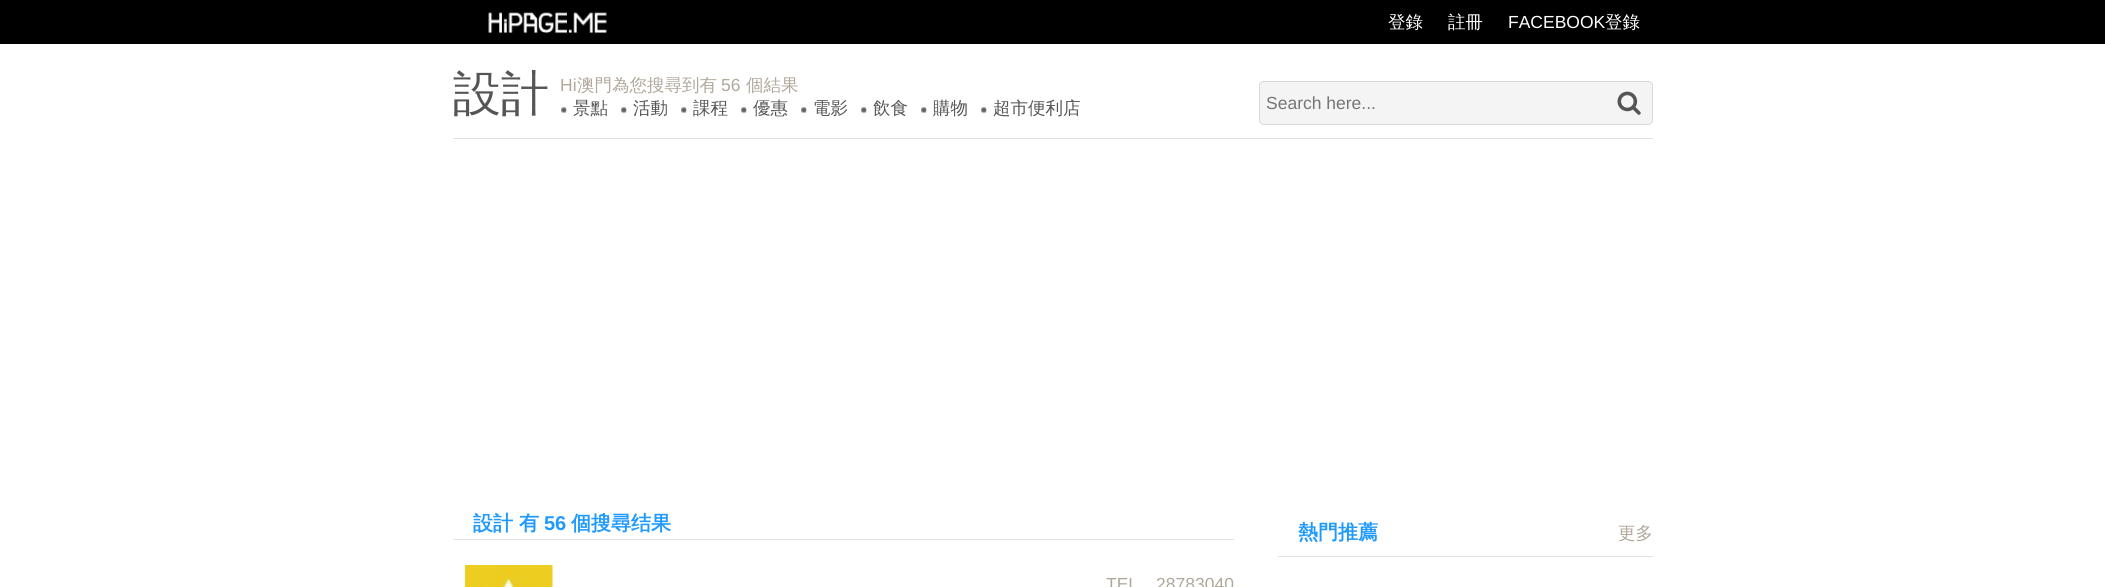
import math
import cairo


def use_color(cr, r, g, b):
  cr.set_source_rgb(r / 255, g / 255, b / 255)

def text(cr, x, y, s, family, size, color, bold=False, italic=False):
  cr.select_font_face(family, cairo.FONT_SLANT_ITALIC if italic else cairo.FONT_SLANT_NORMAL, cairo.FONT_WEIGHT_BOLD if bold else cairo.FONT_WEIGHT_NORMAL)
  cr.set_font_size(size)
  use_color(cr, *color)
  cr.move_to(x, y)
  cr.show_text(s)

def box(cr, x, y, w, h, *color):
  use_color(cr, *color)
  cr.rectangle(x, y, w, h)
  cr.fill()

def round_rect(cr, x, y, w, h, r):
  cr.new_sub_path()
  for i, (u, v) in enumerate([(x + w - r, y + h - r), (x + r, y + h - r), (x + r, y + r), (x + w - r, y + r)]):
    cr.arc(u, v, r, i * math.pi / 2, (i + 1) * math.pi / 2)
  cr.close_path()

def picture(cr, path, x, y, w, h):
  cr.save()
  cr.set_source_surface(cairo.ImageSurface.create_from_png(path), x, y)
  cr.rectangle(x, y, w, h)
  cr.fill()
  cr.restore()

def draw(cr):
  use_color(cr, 255, 255, 255)
  cr.paint()
  box(cr, 0, 0, 2105, 44, 0, 0, 0)
  picture(cr, "img_01.png", 488, 12, 119, 22)
  box(cr, 453, 138, 1200, 1, 225, 225, 225)
  picture(cr, "img_02.png", 561, 107, 6, 6)
  picture(cr, "img_03.png", 621, 107, 6, 6)
  picture(cr, "img_02.png", 681, 107, 6, 6)
  picture(cr, "img_02.png", 741, 107, 6, 6)
  picture(cr, "img_03.png", 801, 107, 6, 6)
  picture(cr, "img_03.png", 861, 107, 6, 6)
  picture(cr, "img_03.png", 921, 107, 6, 6)
  picture(cr, "img_02.png", 981, 107, 6, 6)
  use_color(cr, 244, 244, 244)
  round_rect(cr, 1259.5, 81.5, 393, 43, 4.5)
  cr.fill_preserve()
  use_color(cr, 219, 215, 212)
  cr.set_line_width(1)
  cr.stroke()
  picture(cr, "img_04.png", 1617, 91, 24, 24)
  box(cr, 453, 539, 781, 1, 225, 225, 225)
  picture(cr, "img_05.png", 465, 565, 88, 22)
  box(cr, 1278, 556, 375, 1, 225, 225, 225)
  text(cr, 1388, 28, "登錄", "WenQuanYi Zen Hei Medium", 17.5, (255, 255, 255))
  text(cr, 1448, 28, "註冊", "WenQuanYi Zen Hei Medium", 17.5, (255, 255, 255))
  text(cr, 1508, 28, "FACEBOOK", "Liberation Sans", 17.5, (255, 255, 255))
  text(cr, 1605, 28, "登錄", "WenQuanYi Zen Hei Medium", 17.5, (255, 255, 255))
  text(cr, 453, 110, "設計", "WenQuanYi Zen Hei Medium", 48, (85, 85, 85))
  text(cr, 560, 91, "Hi", "Liberation Sans", 17.5, (176, 168, 154))
  text(cr, 577, 91, "澳門為您搜尋到有", "WenQuanYi Zen Hei Medium", 17.5, (176, 168, 154))
  text(cr, 721, 91, "56", "Liberation Sans", 17.5, (176, 168, 154))
  text(cr, 746, 91, "個結果", "WenQuanYi Zen Hei Medium", 17.5, (176, 168, 154))
  text(cr, 573, 114, "景點", "WenQuanYi Zen Hei Medium", 17.5, (85, 85, 85))
  text(cr, 633, 114, "活動", "WenQuanYi Zen Hei Medium", 17.5, (85, 85, 85))
  text(cr, 693, 114, "課程", "WenQuanYi Zen Hei Medium", 17.5, (85, 85, 85))
  text(cr, 753, 114, "優惠", "WenQuanYi Zen Hei Medium", 17.5, (85, 85, 85))
  text(cr, 813, 114, "電影", "WenQuanYi Zen Hei Medium", 17.5, (85, 85, 85))
  text(cr, 873, 114, "飲食", "WenQuanYi Zen Hei Medium", 17.5, (85, 85, 85))
  text(cr, 933, 114, "購物", "WenQuanYi Zen Hei Medium", 17.5, (85, 85, 85))
  text(cr, 993, 114, "超市便利店", "WenQuanYi Zen Hei Medium", 17.5, (85, 85, 85))
  text(cr, 1266, 109, "Search here...", "Liberation Sans", 17.5, (117, 117, 117))
  text(cr, 473, 530, "設計 有", "WenQuanYi Zen Hei", 20, (32, 154, 255), bold=True)
  text(cr, 544, 530, "56", "Liberation Sans", 20, (32, 154, 255), bold=True)
  text(cr, 571, 530, "個搜尋结果", "WenQuanYi Zen Hei", 20, (32, 154, 255), bold=True)
  text(cr, 1106, 590, "TEL", "Liberation Sans", 17.5, (176, 168, 154))
  text(cr, 1156, 590, "28783040", "Liberation Sans", 17.5, (176, 168, 154))
  text(cr, 1298, 539, "熱門推薦", "WenQuanYi Zen Hei", 20, (32, 154, 255), bold=True)
  text(cr, 1618, 539, "更多", "WenQuanYi Zen Hei Medium", 17.5, (176, 168, 154))


surface = cairo.ImageSurface(cairo.FORMAT_RGB24, 2105, 587)
cr = cairo.Context(surface)
options = cairo.FontOptions()
options.set_hint_metrics(cairo.HINT_METRICS_OFF)
options.set_hint_style(cairo.HINT_STYLE_NONE)
cr.set_font_options(options)
cr.set_miter_limit(4)
draw(cr)
surface.write_to_png("out.png")
